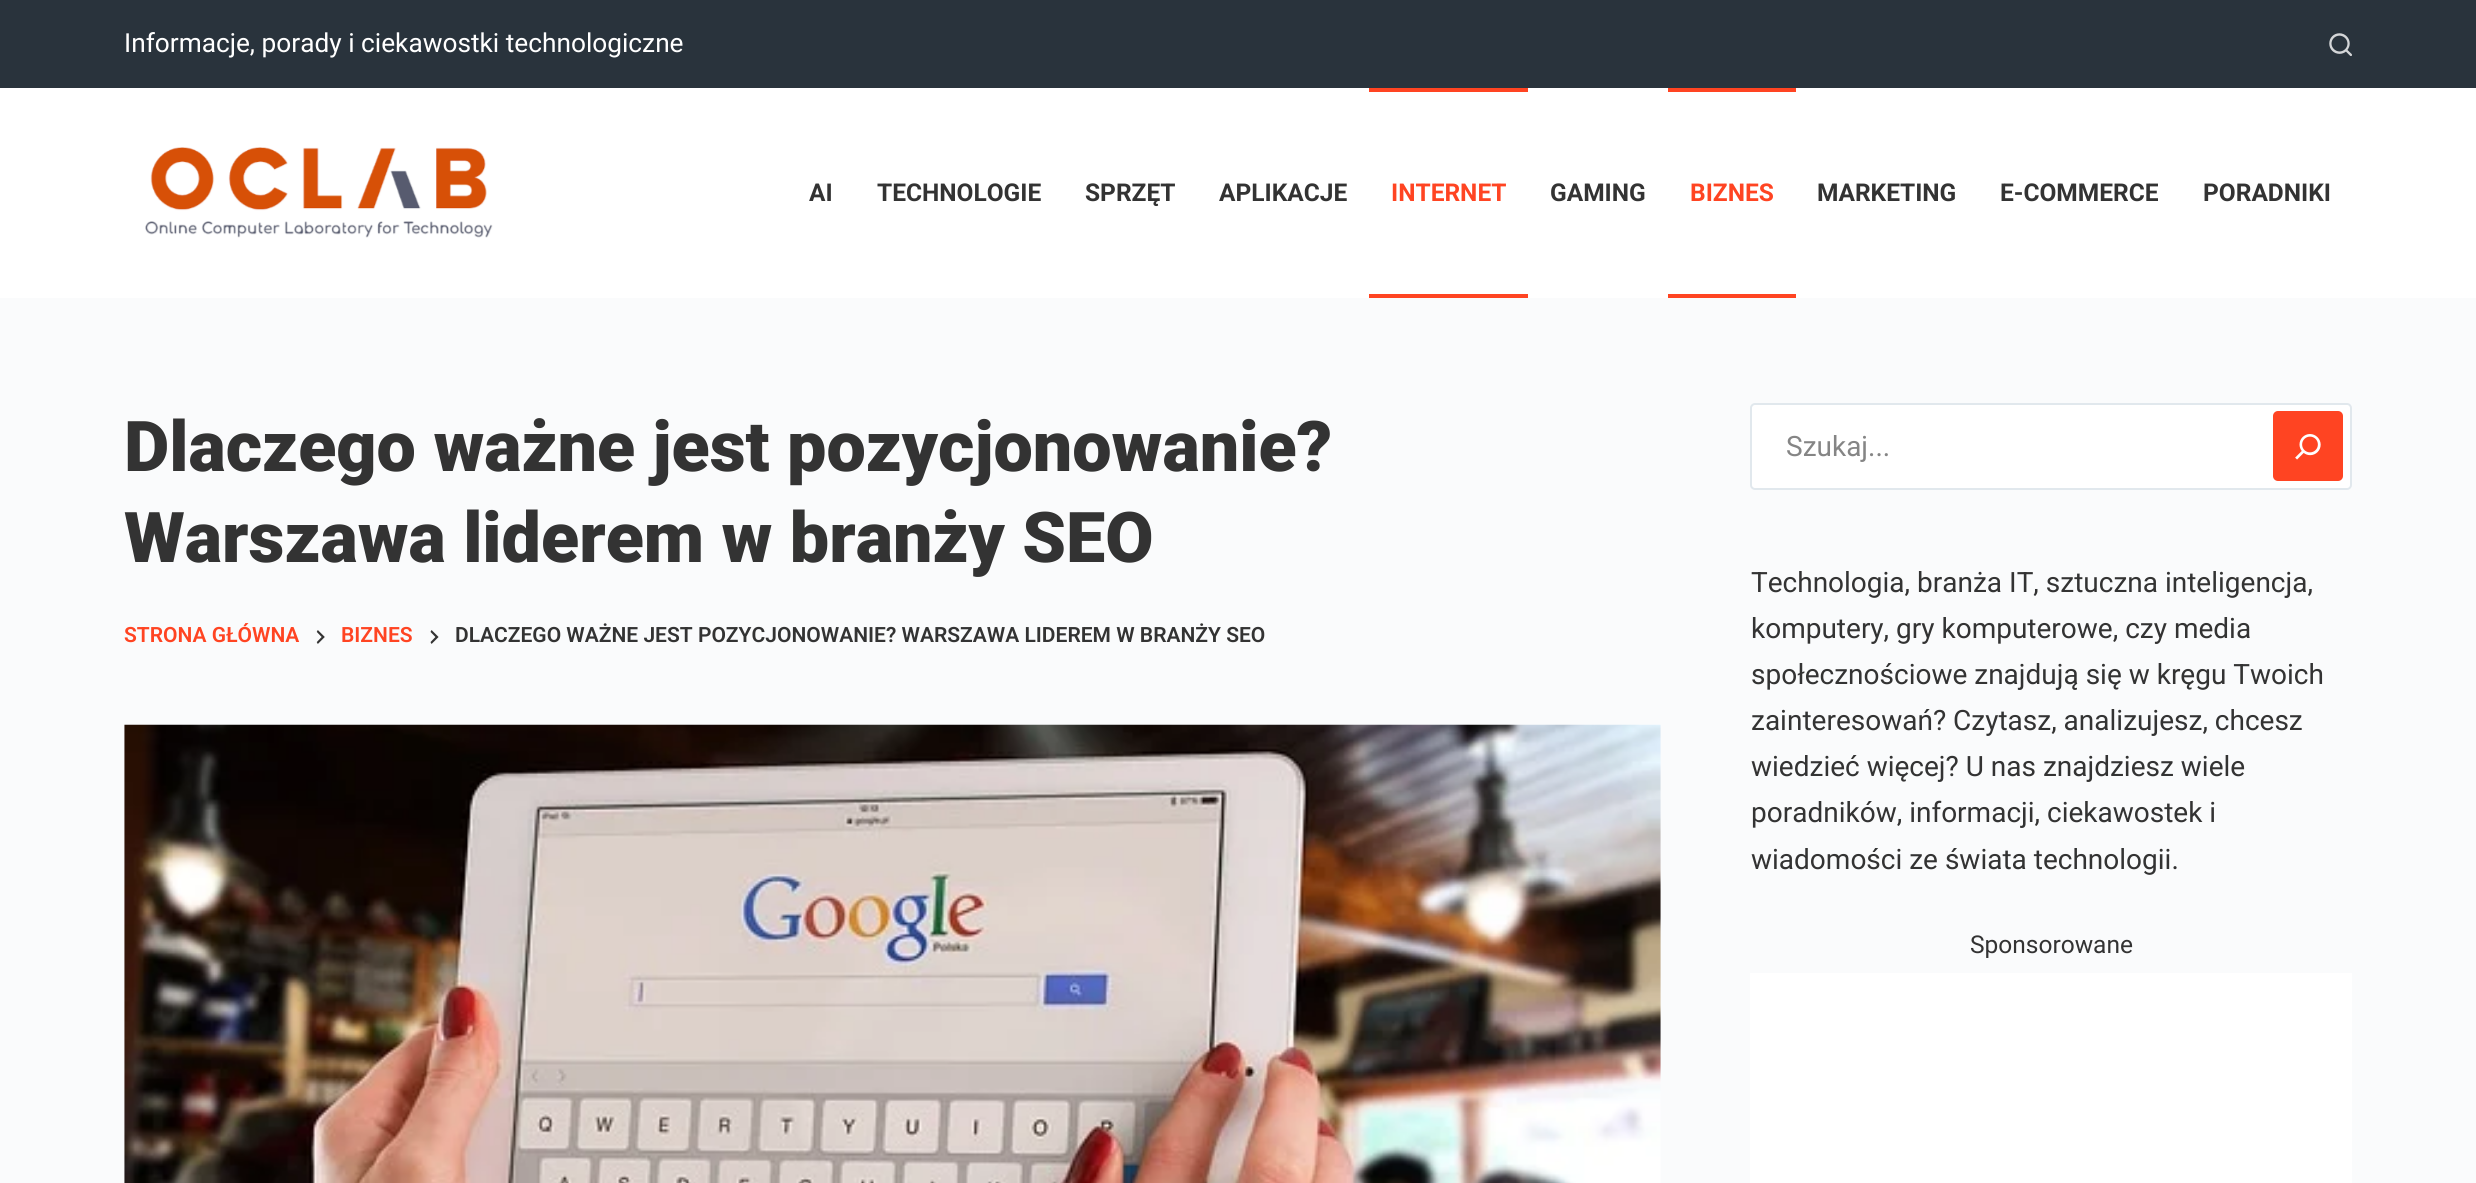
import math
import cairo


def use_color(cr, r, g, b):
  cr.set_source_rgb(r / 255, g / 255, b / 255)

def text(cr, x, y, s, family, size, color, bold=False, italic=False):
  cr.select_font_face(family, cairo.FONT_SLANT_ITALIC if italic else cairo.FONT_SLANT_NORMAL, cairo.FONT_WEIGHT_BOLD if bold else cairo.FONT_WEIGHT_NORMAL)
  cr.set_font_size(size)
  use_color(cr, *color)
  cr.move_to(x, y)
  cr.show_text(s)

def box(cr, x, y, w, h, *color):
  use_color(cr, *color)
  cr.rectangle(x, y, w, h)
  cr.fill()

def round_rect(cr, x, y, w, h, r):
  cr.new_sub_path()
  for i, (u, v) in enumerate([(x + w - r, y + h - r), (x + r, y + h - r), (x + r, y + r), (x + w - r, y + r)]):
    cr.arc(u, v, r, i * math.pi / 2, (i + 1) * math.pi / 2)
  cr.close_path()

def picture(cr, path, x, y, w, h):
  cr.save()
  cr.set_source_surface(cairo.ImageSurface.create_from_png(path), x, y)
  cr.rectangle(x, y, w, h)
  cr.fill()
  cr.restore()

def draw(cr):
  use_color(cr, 250, 251, 252)
  cr.paint()
  box(cr, 0, 0, 2476, 88, 41, 51, 60)
  picture(cr, "img_01.png", 2329, 33, 23, 23)
  box(cr, 0, 88, 2476, 210, 255, 255, 255)
  picture(cr, "img_02.png", 145, 147, 348, 91)
  box(cr, 1369, 88, 159, 4, 255, 68, 34)
  box(cr, 1369, 294, 159, 4, 255, 68, 34)
  box(cr, 1668, 88, 128, 4, 255, 68, 34)
  box(cr, 1668, 294, 128, 4, 255, 68, 34)
  picture(cr, "img_03.png", 316, 630, 9, 14)
  picture(cr, "img_04.png", 430, 630, 9, 14)
  picture(cr, "img_05.png", 124, 724, 1537, 459)
  use_color(cr, 255, 255, 255)
  round_rect(cr, 1751, 404, 600, 85, 4)
  cr.fill_preserve()
  use_color(cr, 225, 232, 237)
  cr.stroke()
  use_color(cr, 255, 68, 34)
  round_rect(cr, 2273, 411, 70, 70, 5)
  cr.fill()
  picture(cr, "img_06.png", 2295, 434, 26, 26)
  box(cr, 1750, 973, 602, 210, 255, 255, 255)
  text(cr, 124, 52, "Informacje, porady i ciekawostki technologiczne", "Roboto", 26.25, (255, 255, 255))
  text(cr, 809, 201, "AI", "Roboto", 24.5, (51, 51, 51), bold=True)
  text(cr, 877, 201, "TECHNOLOGIE", "Roboto", 24.5, (51, 51, 51), bold=True)
  text(cr, 1085, 201, "SPRZĘT", "Roboto", 24.5, (51, 51, 51), bold=True)
  text(cr, 1219, 201, "APLIKACJE", "Roboto", 24.5, (51, 51, 51), bold=True)
  text(cr, 1391, 201, "INTERNET", "Roboto", 24.5, (255, 68, 34), bold=True)
  text(cr, 1550, 201, "GAMING", "Roboto", 24.5, (51, 51, 51), bold=True)
  text(cr, 1690, 201, "BIZNES", "Roboto", 24.5, (255, 68, 34), bold=True)
  text(cr, 1817, 201, "MARKETING", "Roboto", 24.5, (51, 51, 51), bold=True)
  text(cr, 2000, 201, "E-COMMERCE", "Roboto", 24.5, (51, 51, 51), bold=True)
  text(cr, 2203, 201, "PORADNIKI", "Roboto", 24.5, (51, 51, 51), bold=True)
  text(cr, 124, 471, "Dlaczego ważne jest pozycjonowanie?", "Roboto Black", 70, (51, 51, 51))
  text(cr, 124, 562, "Warszawa liderem w branży SEO", "Roboto Black", 70, (51, 51, 51))
  text(cr, 124, 642, "STRONA GŁÓWNA", "Roboto SemiBold", 21, (255, 68, 34))
  text(cr, 341, 642, "BIZNES", "Roboto SemiBold", 21, (255, 68, 34))
  text(cr, 455, 642, "DLACZEGO WAŻNE JEST POZYCJONOWANIE? WARSZAWA LIDEREM W BRANŻY SEO", "Roboto SemiBold", 21, (51, 51, 51))
  text(cr, 1786, 456, "Szukaj...", "Roboto", 28, (133, 133, 133))
  text(cr, 1751, 592, "Technologia, branża IT, sztuczna inteligencja,", "Roboto", 28, (51, 51, 51))
  text(cr, 1751, 638, "komputery, gry komputerowe, czy media", "Roboto", 28, (51, 51, 51))
  text(cr, 1751, 684, "społecznościowe znajdują się w kręgu Twoich", "Roboto", 28, (51, 51, 51))
  text(cr, 1751, 730, "zainteresowań? Czytasz, analizujesz, chcesz", "Roboto", 28, (51, 51, 51))
  text(cr, 1751, 776, "wiedzieć więcej? U nas znajdziesz wiele", "Roboto", 28, (51, 51, 51))
  text(cr, 1751, 822, "poradników, informacji, ciekawostek i", "Roboto", 28, (51, 51, 51))
  text(cr, 1751, 869, "wiadomości ze świata technologii.", "Roboto", 28, (51, 51, 51))
  text(cr, 1970, 953, "Sponsorowane", "Roboto", 24.5, (51, 51, 51))


surface = cairo.ImageSurface(cairo.FORMAT_RGB24, 2476, 1183)
cr = cairo.Context(surface)
options = cairo.FontOptions()
options.set_hint_metrics(cairo.HINT_METRICS_OFF)
options.set_hint_style(cairo.HINT_STYLE_NONE)
cr.set_font_options(options)
cr.set_miter_limit(4)
draw(cr)
surface.write_to_png("out.png")
